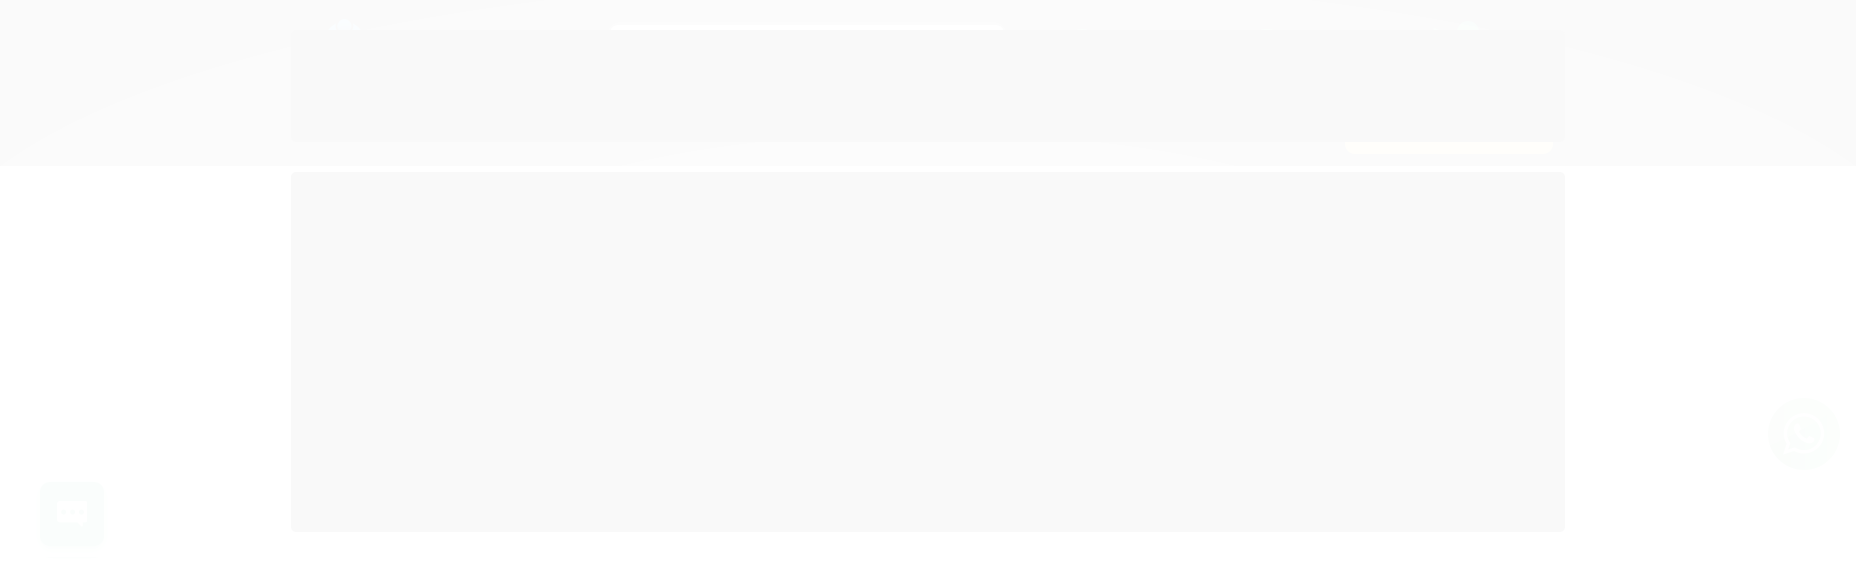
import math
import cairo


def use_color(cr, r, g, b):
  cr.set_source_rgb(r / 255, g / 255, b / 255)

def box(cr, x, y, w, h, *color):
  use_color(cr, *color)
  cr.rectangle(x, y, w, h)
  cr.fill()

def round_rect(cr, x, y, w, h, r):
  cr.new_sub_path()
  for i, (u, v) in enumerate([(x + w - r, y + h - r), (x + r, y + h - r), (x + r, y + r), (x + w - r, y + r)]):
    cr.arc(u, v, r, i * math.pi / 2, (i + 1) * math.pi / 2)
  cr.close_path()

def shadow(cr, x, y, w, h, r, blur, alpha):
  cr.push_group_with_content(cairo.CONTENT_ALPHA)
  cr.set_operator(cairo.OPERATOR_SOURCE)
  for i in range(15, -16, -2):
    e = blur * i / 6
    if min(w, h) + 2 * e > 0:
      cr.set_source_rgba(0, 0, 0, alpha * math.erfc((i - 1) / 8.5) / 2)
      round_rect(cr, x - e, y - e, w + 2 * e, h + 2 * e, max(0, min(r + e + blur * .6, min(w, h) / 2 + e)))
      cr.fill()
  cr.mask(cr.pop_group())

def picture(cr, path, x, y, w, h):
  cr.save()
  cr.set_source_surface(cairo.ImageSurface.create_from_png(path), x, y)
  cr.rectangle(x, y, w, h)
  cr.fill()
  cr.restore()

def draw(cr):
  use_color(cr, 255, 255, 255)
  cr.paint()
  box(cr, 0, 0, 1856, 166, 0, 0, 0)
  picture(cr, "img_01.png", 328, 19, 33, 11)
  use_color(cr, 204, 204, 204)
  shadow(cr, 612, 27, 390, 41, 6, 4.5, 1)
  use_color(cr, 255, 255, 255)
  round_rect(cr, 610.5, 25.5, 393, 44, 7.5)
  cr.fill_preserve()
  use_color(cr, 229, 231, 235)
  cr.set_line_width(1)
  cr.stroke()
  picture(cr, "img_02.png", 1076, 29, 12, 1)
  picture(cr, "img_03.png", 1260, 29, 14, 1)
  picture(cr, "img_04.png", 1433, 28, 6, 2)
  use_color(cr, 0, 168, 89)
  cr.arc(1468, 32, 11, 0, 2 * math.pi)
  cr.fill()
  use_color(cr, 254, 221, 0)
  round_rect(cr, 1345, 109, 208, 45, 10)
  cr.fill()
  gradient = cairo.LinearGradient(1768, 434, 1840, 434)
  gradient.add_color_stop_rgba(0, 0.125, 0.569, 0.259, 1)
  gradient.add_color_stop_rgba(1, 0.337, 0.824, 0.388, 1)
  cr.set_source(gradient)
  cr.arc(1804, 434, 36, 0, 2 * math.pi)
  cr.fill()
  picture(cr, "img_05.png", 1783, 413, 42, 42)
  use_color(cr, 0, 168, 89)
  shadow(cr, 42, 487, 60, 60, 8, 4.5, 1)
  use_color(cr, 0, 168, 89)
  round_rect(cr, 40, 482, 64, 64, 10)
  cr.fill()
  picture(cr, "img_06.png", 57, 501, 30, 26)
  gradient = cairo.RadialGradient(0, 0, 0, 0, 0, 1)
  gradient.set_matrix(cairo.Matrix(1 / 1312, 0, 0, 1 / 397, -1 * 928 / 1312, -1 * 281 / 397))
  gradient.add_color_stop_rgba(0, 1, 1, 1, 0.99)
  gradient.add_color_stop_rgba(1, 1, 1, 1, 0.98)
  cr.set_source(gradient)
  cr.rectangle(0, 0, 1856, 557)
  cr.fill()
  use_color(cr, 249, 249, 249)
  round_rect(cr, 291, 30, 1274, 112, 5)
  cr.fill()
  round_rect(cr, 291, 172, 1274, 360, 5)
  cr.fill()


surface = cairo.ImageSurface(cairo.FORMAT_RGB24, 1856, 562)
cr = cairo.Context(surface)
options = cairo.FontOptions()
options.set_hint_metrics(cairo.HINT_METRICS_OFF)
options.set_hint_style(cairo.HINT_STYLE_NONE)
cr.set_font_options(options)
cr.set_miter_limit(4)
draw(cr)
surface.write_to_png("out.png")
